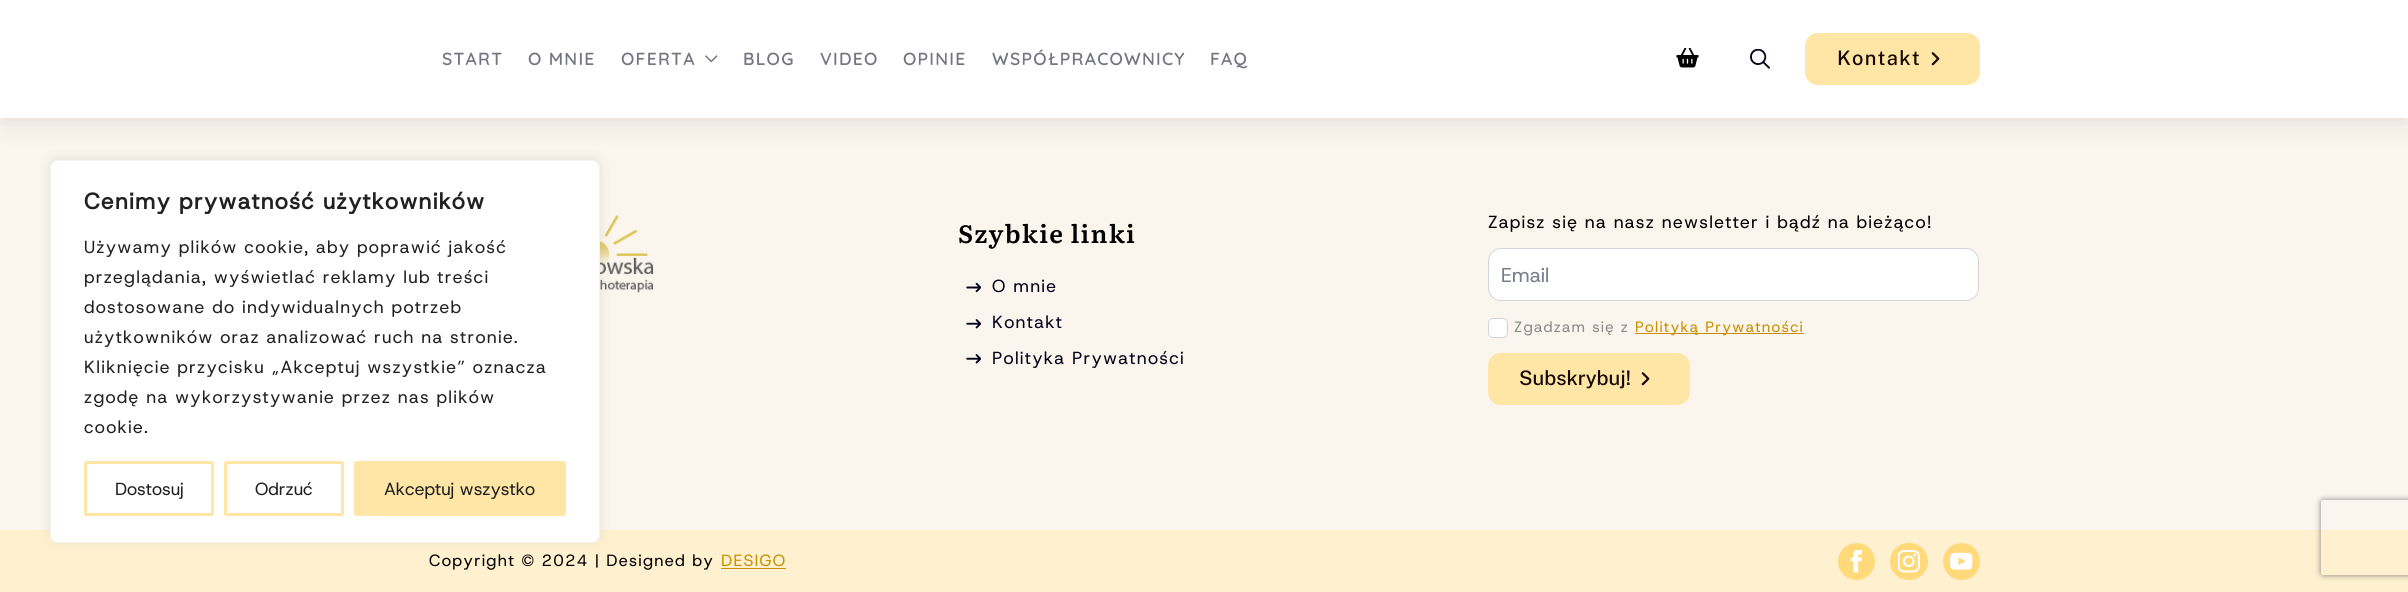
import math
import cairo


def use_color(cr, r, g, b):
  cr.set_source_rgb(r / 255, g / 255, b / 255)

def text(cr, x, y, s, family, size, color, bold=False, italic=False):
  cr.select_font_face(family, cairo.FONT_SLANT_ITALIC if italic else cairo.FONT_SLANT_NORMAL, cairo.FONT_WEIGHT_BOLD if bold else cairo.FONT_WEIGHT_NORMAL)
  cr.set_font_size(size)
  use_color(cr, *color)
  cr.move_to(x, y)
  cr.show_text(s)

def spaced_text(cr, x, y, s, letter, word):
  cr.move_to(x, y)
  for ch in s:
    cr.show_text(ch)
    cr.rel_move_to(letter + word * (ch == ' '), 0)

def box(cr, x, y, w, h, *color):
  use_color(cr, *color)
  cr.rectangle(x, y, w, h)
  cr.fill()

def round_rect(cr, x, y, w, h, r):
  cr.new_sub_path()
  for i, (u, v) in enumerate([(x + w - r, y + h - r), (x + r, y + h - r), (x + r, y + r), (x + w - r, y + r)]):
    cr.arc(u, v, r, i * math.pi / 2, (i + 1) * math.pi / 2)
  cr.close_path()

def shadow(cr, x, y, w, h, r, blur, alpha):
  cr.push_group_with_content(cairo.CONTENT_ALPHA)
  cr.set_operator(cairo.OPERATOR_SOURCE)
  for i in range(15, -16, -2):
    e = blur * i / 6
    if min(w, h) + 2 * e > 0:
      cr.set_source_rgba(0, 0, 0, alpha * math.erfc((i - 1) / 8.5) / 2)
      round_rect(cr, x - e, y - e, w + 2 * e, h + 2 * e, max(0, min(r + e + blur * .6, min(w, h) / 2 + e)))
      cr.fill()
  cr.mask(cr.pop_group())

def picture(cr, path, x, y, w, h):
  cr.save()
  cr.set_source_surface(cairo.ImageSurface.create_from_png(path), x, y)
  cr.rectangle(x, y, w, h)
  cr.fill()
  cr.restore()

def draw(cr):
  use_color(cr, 255, 255, 255)
  cr.paint()
  gradient = cairo.LinearGradient(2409, -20, 0, -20)
  gradient.add_color_stop_rgba(0, 1, 1, 0.996, 1)
  gradient.add_color_stop_rgba(1, 1, 0.996, 0.984, 1)
  cr.set_source(gradient)
  cr.rectangle(0, 118, 1, 6)
  cr.fill()
  use_color(cr, 251, 246, 237)
  cr.new_path()
  cr.move_to(38, 86)
  cr.line_to(2371, 86)
  cr.curve_to(2392, 86, 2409, 103, 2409, 124)
  cr.line_to(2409, 530)
  cr.line_to(0, 530)
  cr.line_to(0, 124)
  cr.curve_to(0, 103, 17, 86, 38, 86)
  cr.close_path()
  cr.fill()
  use_color(cr, 2, 2, 29)
  shadow(cr, 0, 0, 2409, 118, 0, 15.5, 0.12)
  box(cr, 0, 0, 2408, 118, 255, 255, 255)
  picture(cr, "img_01.png", 705, 55, 13, 8)
  picture(cr, "img_02.png", 1676, 48, 23, 20)
  picture(cr, "img_03.png", 1750, 49, 20, 20)
  use_color(cr, 255, 230, 166)
  round_rect(cr, 1805, 33, 175, 52, 13)
  cr.fill()
  picture(cr, "img_04.png", 1931, 52, 9, 14)
  picture(cr, "img_05.png", 600, 214, 54, 79)
  box(cr, 0, 530, 2408, 62, 255, 241, 207)
  use_color(cr, 172, 171, 171)
  shadow(cr, 50, 159, 550, 382, 8, 6, 0.3)
  use_color(cr, 255, 255, 255)
  round_rect(cr, 50.5, 160.5, 549, 382, 7.5)
  cr.fill_preserve()
  use_color(cr, 244, 244, 244)
  cr.set_line_width(1)
  cr.stroke()
  round_rect(cr, 85.5, 462.5, 127, 52, 1)
  use_color(cr, 255, 230, 166)
  cr.set_line_width(3)
  cr.stroke()
  round_rect(cr, 225.5, 462.5, 117, 52, 1)
  cr.stroke()
  round_rect(cr, 355.5, 462.5, 209, 52, 1)
  cr.fill_preserve()
  cr.stroke()
  picture(cr, "img_06.png", 966, 282, 15, 11)
  picture(cr, "img_07.png", 966, 319, 15, 10)
  picture(cr, "img_07.png", 966, 354, 15, 10)
  use_color(cr, 255, 255, 255)
  round_rect(cr, 1488.5, 248.5, 490, 52, 12.5)
  cr.fill_preserve()
  use_color(cr, 209, 213, 219)
  cr.set_line_width(1)
  cr.stroke()
  use_color(cr, 255, 255, 255)
  round_rect(cr, 1488.5, 318.5, 19, 19, 4.5)
  cr.fill_preserve()
  use_color(cr, 209, 213, 219)
  cr.stroke()
  box(cr, 1635, 333, 169, 1, 202, 142, 2)
  use_color(cr, 255, 230, 166)
  round_rect(cr, 1488, 353, 202, 52, 13)
  cr.fill()
  picture(cr, "img_04.png", 1641, 372, 9, 14)
  box(cr, 721, 568, 65, 1, 202, 142, 2)
  use_color(cr, 255, 217, 122)
  cr.arc(1856.5, 561.5, 18.5, 0, 2 * math.pi)
  cr.fill()
  picture(cr, "img_08.png", 1850, 550, 12, 23)
  round_rect(cr, 1890, 543, 38, 37, 18.5)
  cr.fill()
  picture(cr, "img_09.png", 1898, 550, 22, 23)
  cr.arc(1961.5, 561.5, 18.5, 0, 2 * math.pi)
  cr.fill()
  picture(cr, "img_10.png", 1950, 552, 23, 18)
  cr.save()
  cr.set_fill_rule(cairo.FILL_RULE_EVEN_ODD)
  cr.new_path()
  cr.move_to(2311, 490)
  cr.line_to(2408, 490)
  cr.line_to(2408, 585)
  cr.line_to(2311, 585)
  cr.close_path()
  cr.move_to(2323.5, 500)
  cr.line_to(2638.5, 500)
  cr.curve_to(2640, 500, 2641, 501, 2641, 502.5)
  cr.line_to(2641, 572.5)
  cr.curve_to(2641, 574, 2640, 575, 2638.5, 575)
  cr.line_to(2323.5, 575)
  cr.curve_to(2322, 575, 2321, 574, 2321, 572.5)
  cr.line_to(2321, 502.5)
  cr.curve_to(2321, 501, 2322, 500, 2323.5, 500)
  cr.close_path()
  cr.clip()
  use_color(cr, 128, 128, 128)
  shadow(cr, 2321, 500, 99, 75, 2.5, 3, 1)
  cr.restore()
  cr.select_font_face("Quicksand SemiBold")
  cr.set_font_size(17.5)
  use_color(cr, 116, 116, 131)
  spaced_text(cr, 442, 65, "START", 1.25, 0)
  spaced_text(cr, 528, 65, "O MNIE", 1.25, 0)
  spaced_text(cr, 621, 65, "OFERTA", 1.25, 0)
  spaced_text(cr, 743, 65, "BLOG", 1.25, 0)
  spaced_text(cr, 820, 65, "VIDEO", 1.25, 0)
  spaced_text(cr, 903, 65, "OPINIE", 1.25, 0)
  spaced_text(cr, 992, 65, "WSPÓŁPRACOWNICY", 1.25, 0)
  spaced_text(cr, 1210, 65, "FAQ", 1.25, 0)
  cr.select_font_face("Public Sans Medium")
  cr.set_font_size(20)
  use_color(cr, 21, 9, 0)
  spaced_text(cr, 1837, 65, "Kontakt", 1.25, 0)
  cr.select_font_face("Host Grotesk", cairo.FONT_SLANT_NORMAL, cairo.FONT_WEIGHT_BOLD)
  cr.set_font_size(22.5)
  use_color(cr, 33, 33, 33)
  spaced_text(cr, 84, 209, "Cenimy prywatność użytkowników", 1.25, 0)
  cr.select_font_face("Host Grotesk")
  cr.set_font_size(17.5)
  spaced_text(cr, 84, 253, "Używamy plików cookie, aby poprawić jakość", 1.25, 0)
  spaced_text(cr, 84, 283, "przeglądania, wyświetlać reklamy lub treści", 1.25, 0)
  spaced_text(cr, 84, 313, "dostosowane do indywidualnych potrzeb", 1.25, 0)
  spaced_text(cr, 84, 343, "użytkowników oraz analizować ruch na stronie.", 1.25, 0)
  spaced_text(cr, 84, 373, "Kliknięcie przycisku „Akceptuj wszystkie” oznacza", 1.25, 0)
  spaced_text(cr, 84, 403, "zgodę na wykorzystywanie przez nas plików", 1.25, 0)
  spaced_text(cr, 84, 433, "cookie.", 1.25, 0)
  text(cr, 115, 495, "Dostosuj", "Host Grotesk", 17.5, (33, 33, 33))
  text(cr, 255, 495, "Odrzuć", "Host Grotesk", 17.5, (33, 33, 33))
  text(cr, 384, 495, "Akceptuj wszystko", "Host Grotesk", 17.5, (33, 33, 33))
  cr.select_font_face("Literata SemiBold")
  cr.set_font_size(25)
  use_color(cr, 1, 1, 1)
  spaced_text(cr, 958, 243, "Szybkie linki", 1.25, 0)
  cr.select_font_face("Host Grotesk")
  cr.set_font_size(17.5)
  use_color(cr, 2, 2, 29)
  spaced_text(cr, 992, 292, "O mnie", 1.25, 0)
  spaced_text(cr, 992, 328, "Kontakt", 1.25, 0)
  spaced_text(cr, 992, 364, "Polityka Prywatności", 1.25, 0)
  use_color(cr, 1, 1, 1)
  spaced_text(cr, 1488, 228, "Zapisz się na nasz newsletter i bądź na bieżąco!", 1.25, 0)
  text(cr, 1501, 282, "Email", "Host Grotesk", 20, (120, 126, 139))
  cr.set_font_size(15)
  use_color(cr, 138, 138, 138)
  spaced_text(cr, 1514, 332, "Zgadzam się z", 1.25, 0)
  use_color(cr, 202, 142, 2)
  spaced_text(cr, 1635, 332, "Polityką Prywatności", 1.25, 0)
  text(cr, 1519, 385, "Subskrybuj!", "Public Sans Medium", 20, (21, 9, 0))
  cr.select_font_face("Host Grotesk")
  cr.set_font_size(16.25)
  use_color(cr, 1, 1, 1)
  spaced_text(cr, 429, 566, "Copyright © 2024 | Designed by", 1.25, 0)
  use_color(cr, 202, 142, 2)
  spaced_text(cr, 721, 566, "DESIGO", 1.25, 0)


surface = cairo.ImageSurface(cairo.FORMAT_RGB24, 2408, 592)
cr = cairo.Context(surface)
options = cairo.FontOptions()
options.set_hint_metrics(cairo.HINT_METRICS_OFF)
options.set_hint_style(cairo.HINT_STYLE_NONE)
cr.set_font_options(options)
cr.set_miter_limit(4)
draw(cr)
surface.write_to_png("out.png")
